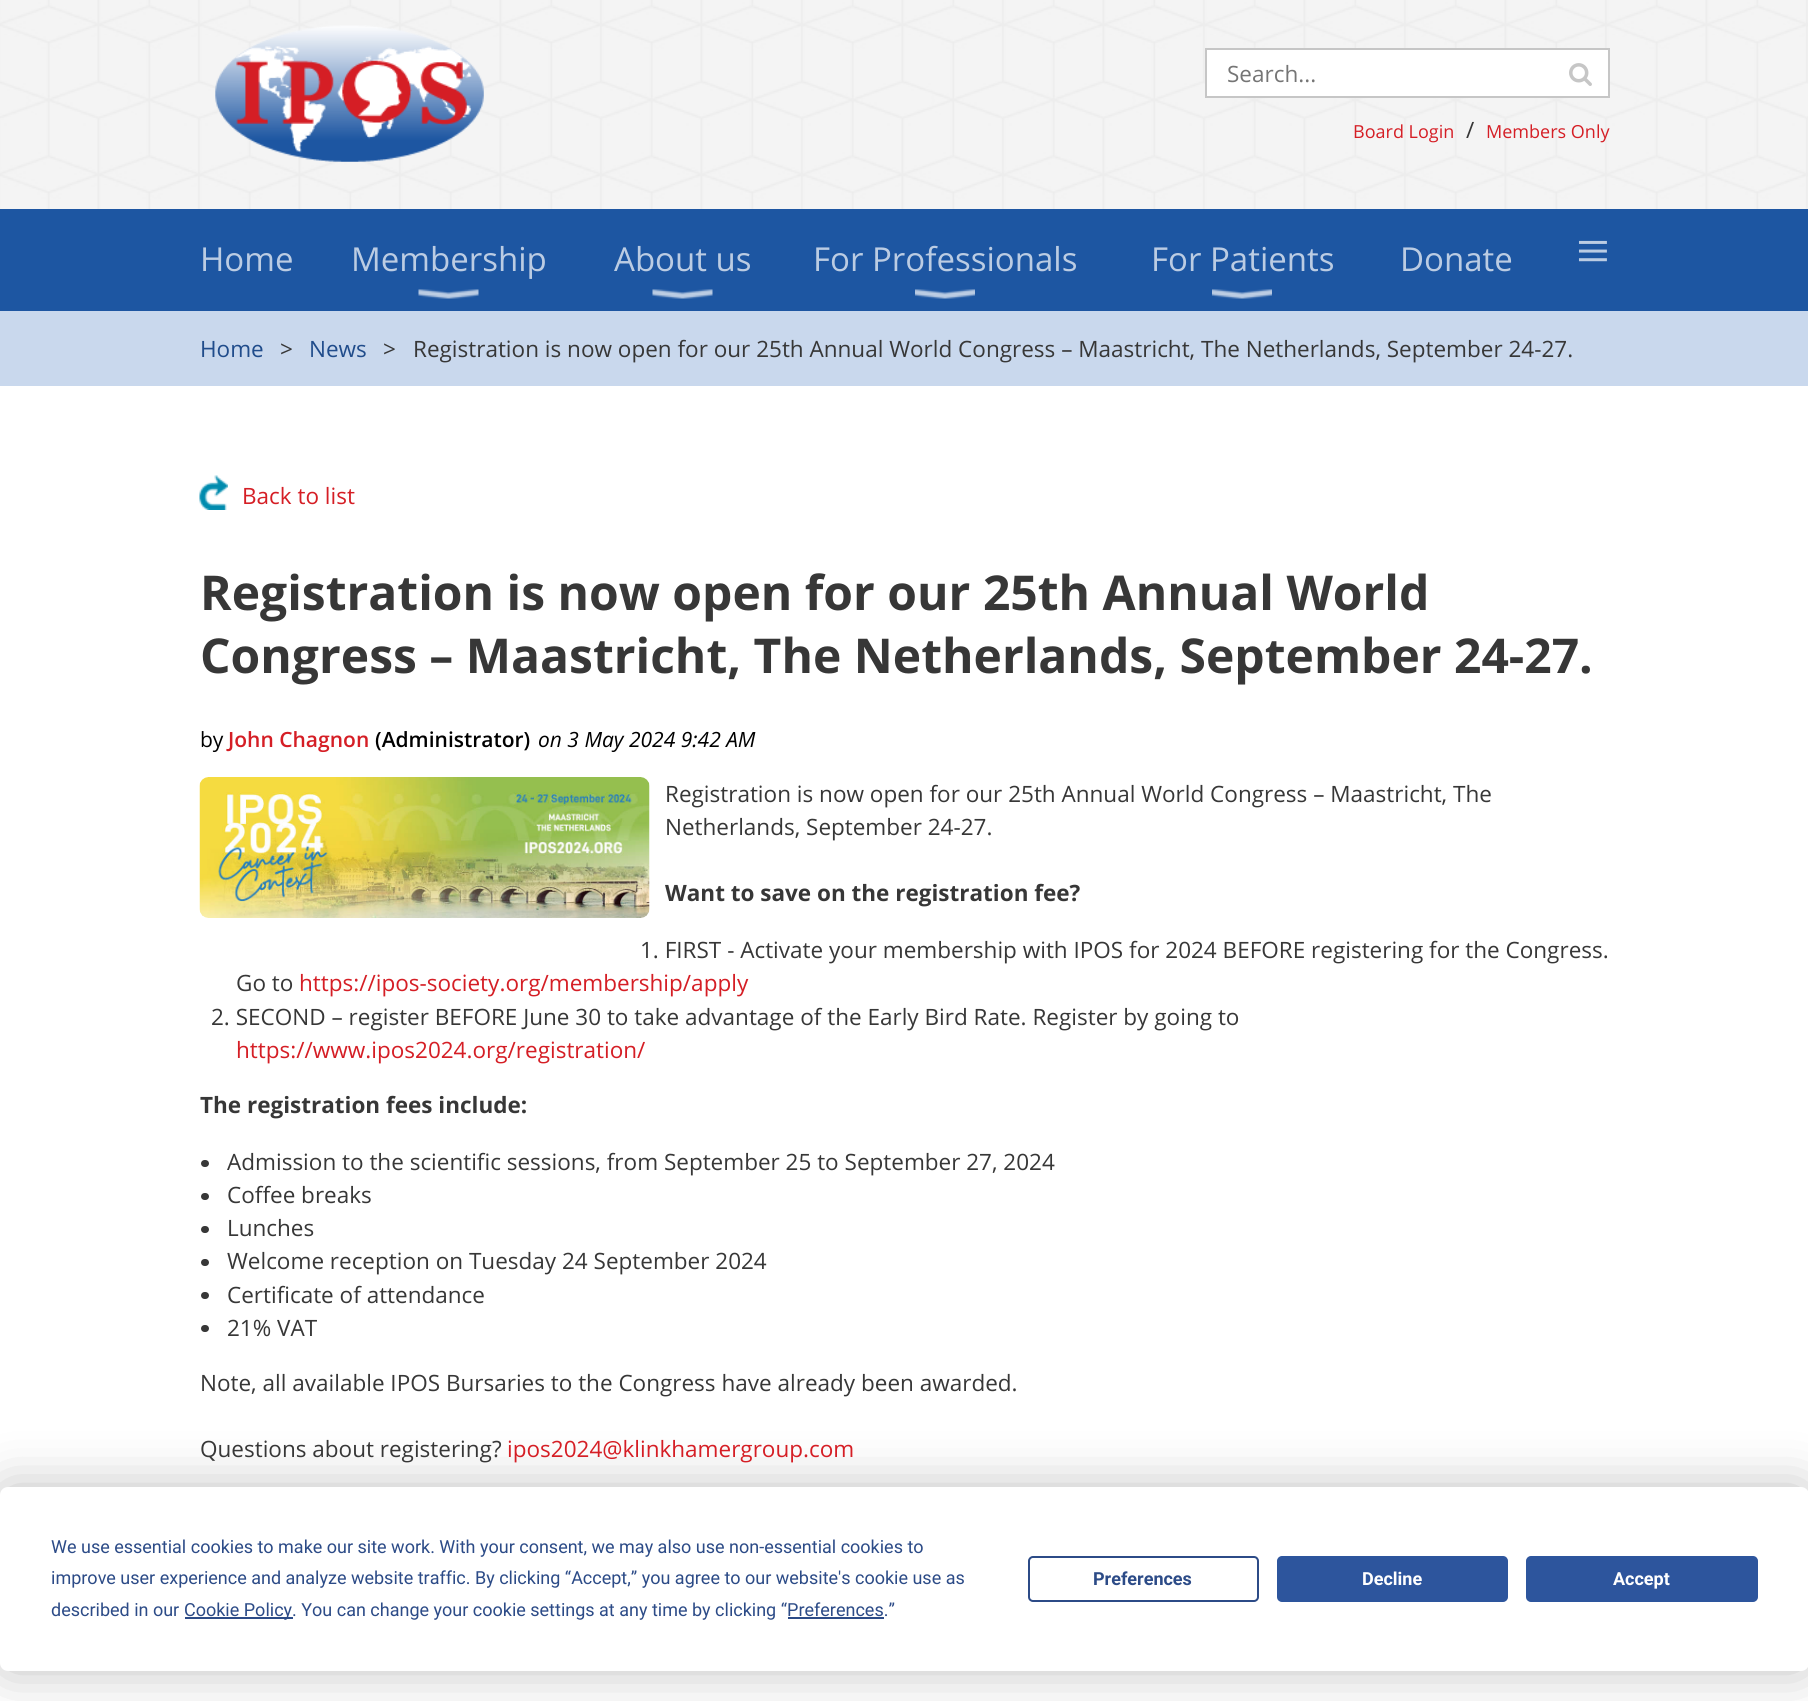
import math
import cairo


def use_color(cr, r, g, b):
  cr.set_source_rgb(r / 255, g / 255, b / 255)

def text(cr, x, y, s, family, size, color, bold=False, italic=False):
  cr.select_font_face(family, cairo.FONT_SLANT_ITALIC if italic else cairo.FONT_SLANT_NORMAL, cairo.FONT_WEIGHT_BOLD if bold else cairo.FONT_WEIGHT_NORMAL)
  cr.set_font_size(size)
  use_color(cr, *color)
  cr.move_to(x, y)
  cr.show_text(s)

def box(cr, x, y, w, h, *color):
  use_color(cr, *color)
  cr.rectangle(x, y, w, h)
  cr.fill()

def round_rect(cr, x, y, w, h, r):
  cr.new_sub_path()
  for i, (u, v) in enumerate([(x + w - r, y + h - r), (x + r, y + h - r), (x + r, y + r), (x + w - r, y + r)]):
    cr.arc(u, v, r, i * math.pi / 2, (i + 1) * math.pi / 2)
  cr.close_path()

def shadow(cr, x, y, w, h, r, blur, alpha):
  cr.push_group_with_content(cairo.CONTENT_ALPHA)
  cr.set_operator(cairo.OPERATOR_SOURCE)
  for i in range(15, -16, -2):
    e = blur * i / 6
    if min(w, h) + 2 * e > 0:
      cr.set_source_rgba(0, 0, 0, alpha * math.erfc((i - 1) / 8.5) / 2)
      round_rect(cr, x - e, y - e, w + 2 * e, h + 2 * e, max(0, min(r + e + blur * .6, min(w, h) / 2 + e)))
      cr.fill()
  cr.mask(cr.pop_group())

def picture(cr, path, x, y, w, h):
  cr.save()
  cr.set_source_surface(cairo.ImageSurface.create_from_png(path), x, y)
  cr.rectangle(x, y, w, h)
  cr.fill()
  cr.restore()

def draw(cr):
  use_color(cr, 255, 255, 255)
  cr.paint()
  picture(cr, "img_01.png", 0, 0, 1808, 209)
  picture(cr, "img_02.png", 215, 25, 269, 137)
  use_color(cr, 255, 255, 255)
  cr.rectangle(1206, 49, 403, 48)
  cr.fill_preserve()
  use_color(cr, 198, 198, 198)
  cr.stroke()
  picture(cr, "img_03.png", 1569, 63, 23, 23)
  box(cr, 0, 209, 1808, 102, 29, 86, 162)
  picture(cr, "img_04.png", 418, 289, 61, 10)
  picture(cr, "img_04.png", 652, 289, 61, 10)
  picture(cr, "img_05.png", 915, 289, 60, 10)
  picture(cr, "img_06.png", 1212, 289, 60, 10)
  box(cr, 0, 311, 1808, 75, 201, 216, 237)
  picture(cr, "img_07.png", 199, 475, 29, 35)
  picture(cr, "img_08.png", 199, 777, 451, 141)
  use_color(cr, 55, 55, 55)
  round_rect(cr, 201, 1160, 8, 7, 3.5)
  cr.fill()
  round_rect(cr, 201, 1193, 8, 7, 3.5)
  cr.fill()
  round_rect(cr, 201, 1226, 8, 7, 3.5)
  cr.fill()
  round_rect(cr, 201, 1259, 8, 7, 3.5)
  cr.fill()
  round_rect(cr, 201, 1292, 8, 7, 3.5)
  cr.fill()
  round_rect(cr, 201, 1325, 8, 7, 3.5)
  cr.fill()
  use_color(cr, 0, 0, 0)
  shadow(cr, 0, 1487, 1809, 184, 8, 26, 0.25)
  use_color(cr, 255, 255, 255)
  round_rect(cr, 0, 1487, 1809, 184, 8)
  cr.fill()
  box(cr, 185, 1617, 108, 2, 44, 75, 135)
  box(cr, 788, 1617, 96, 2, 44, 75, 135)
  round_rect(cr, 1029, 1557, 229, 44, 4)
  cr.stroke()
  use_color(cr, 45, 85, 157)
  round_rect(cr, 1278, 1557, 229, 44, 4)
  cr.fill_preserve()
  cr.stroke()
  round_rect(cr, 1527, 1557, 230, 44, 4)
  cr.fill_preserve()
  cr.stroke()
  text(cr, 1227, 82, "Search...", "Open Sans", 22.5, (117, 117, 117))
  text(cr, 1353, 138, "Board Login", "Open Sans", 18, (213, 30, 37))
  text(cr, 1466, 138, "/", "Open Sans", 22.5, (55, 55, 55))
  text(cr, 1486, 138, "Members Only", "Open Sans", 18, (213, 30, 37))
  text(cr, 200, 271, "Home", "Open Sans", 33, (187, 204, 227))
  text(cr, 351, 271, "Membership", "Open Sans", 33, (187, 204, 227))
  text(cr, 614, 271, "About us", "Open Sans", 33, (187, 204, 227))
  text(cr, 813, 271, "For Professionals", "Open Sans", 33, (187, 204, 227))
  text(cr, 1151, 271, "For Patients", "Open Sans", 33, (187, 204, 227))
  text(cr, 1400, 271, "Donate", "Open Sans", 33, (187, 204, 227))
  text(cr, 1576, 271, "≡", "Liberation Serif", 60, (187, 204, 227))
  text(cr, 200, 357, "Home", "Open Sans", 22.5, (32, 76, 139))
  text(cr, 280, 357, ">", "Open Sans", 22.5, (55, 55, 55))
  text(cr, 309, 357, "News", "Open Sans", 22.5, (32, 76, 139))
  text(cr, 383, 357, ">", "Open Sans", 22.5, (55, 55, 55))
  text(cr, 413, 357, "Registration is now open for our 25th Annual World Congress – Maastricht, The Netherlands, September 24-27.", "Open Sans", 22.5, (55, 55, 55))
  text(cr, 242, 504, "Back to list", "Open Sans", 22.5, (213, 30, 37))
  text(cr, 200, 610, "Registration is now open for our 25th Annual World", "Open Sans", 48, (55, 55, 55), bold=True)
  text(cr, 200, 673, "Congress – Maastricht, The Netherlands, September 24-27.", "Open Sans", 48, (55, 55, 55), bold=True)
  text(cr, 200, 747, "by", "Open Sans", 21, (0, 0, 0))
  text(cr, 228, 747, "John Chagnon", "Open Sans SemiBold", 21, (213, 30, 37))
  text(cr, 375, 747, "(Administrator)", "Open Sans SemiBold", 21, (0, 0, 0))
  text(cr, 538, 747, "on 3 May 2024 9:42 AM", "Open Sans", 21, (0, 0, 0), italic=True)
  text(cr, 665, 802, "Registration is now open for our 25th Annual World Congress – Maastricht, The", "Open Sans", 22.5, (55, 55, 55))
  text(cr, 665, 835, "Netherlands, September 24-27.", "Open Sans", 22.5, (55, 55, 55))
  text(cr, 665, 901, "Want to save on the registration fee?", "Open Sans", 22.5, (55, 55, 55), bold=True)
  text(cr, 640, 958, "1. FIRST - Activate your membership with IPOS for 2024 BEFORE registering for the Congress.", "Open Sans", 22.5, (55, 55, 55))
  text(cr, 236, 991, "Go to", "Open Sans", 22.5, (55, 55, 55))
  text(cr, 299, 991, "https://ipos-society.org/membership/apply", "Open Sans", 22.5, (213, 30, 37))
  text(cr, 211, 1025, "2. SECOND – register BEFORE June 30 to take advantage of the Early Bird Rate. Register by going to", "Open Sans", 22.5, (55, 55, 55))
  text(cr, 236, 1058, "https://www.ipos2024.org/registration/", "Open Sans", 22.5, (213, 30, 37))
  text(cr, 200, 1113, "The registration fees include:", "Open Sans", 22.5, (55, 55, 55), bold=True)
  text(cr, 227, 1170, "Admission to the scientific sessions, from September 25 to September 27, 2024", "Open Sans", 22.5, (55, 55, 55))
  text(cr, 227, 1203, "Coffee breaks", "Open Sans", 22.5, (55, 55, 55))
  text(cr, 227, 1236, "Lunches", "Open Sans", 22.5, (55, 55, 55))
  text(cr, 227, 1269, "Welcome reception on Tuesday 24 September 2024", "Open Sans", 22.5, (55, 55, 55))
  text(cr, 227, 1303, "Certificate of attendance", "Open Sans", 22.5, (55, 55, 55))
  text(cr, 227, 1336, "21% VAT", "Open Sans", 22.5, (55, 55, 55))
  text(cr, 200, 1391, "Note, all available IPOS Bursaries to the Congress have already been awarded.", "Open Sans", 22.5, (55, 55, 55))
  text(cr, 200, 1457, "Questions about registering?", "Open Sans", 22.5, (55, 55, 55))
  text(cr, 507, 1457, "ipos2024@klinkhamergroup.com", "Open Sans", 22.5, (213, 30, 37))
  text(cr, 51, 1553, "We use essential cookies to make our site work. With your consent, we may also use non-essential cookies to", "Roboto", 18, (44, 75, 135))
  text(cr, 51, 1584, "improve user experience and analyze website traffic. By clicking “Accept,” you agree to our website's cookie use as", "Roboto", 18, (44, 75, 135))
  text(cr, 51, 1616, "described in our", "Roboto", 18, (44, 75, 135))
  text(cr, 184, 1616, "Cookie Policy. You can change your cookie settings at any time by clicking “Preferences.”", "Roboto", 18, (44, 75, 135))
  text(cr, 1093, 1585, "Preferences", "Roboto", 18, (44, 75, 135), bold=True)
  text(cr, 1362, 1585, "Decline", "Roboto", 18, (255, 255, 255), bold=True)
  text(cr, 1613, 1585, "Accept", "Roboto", 18, (255, 255, 255), bold=True)


surface = cairo.ImageSurface(cairo.FORMAT_RGB24, 1808, 1701)
cr = cairo.Context(surface)
options = cairo.FontOptions()
options.set_hint_metrics(cairo.HINT_METRICS_OFF)
options.set_hint_style(cairo.HINT_STYLE_NONE)
cr.set_font_options(options)
cr.set_miter_limit(4)
draw(cr)
surface.write_to_png("out.png")
